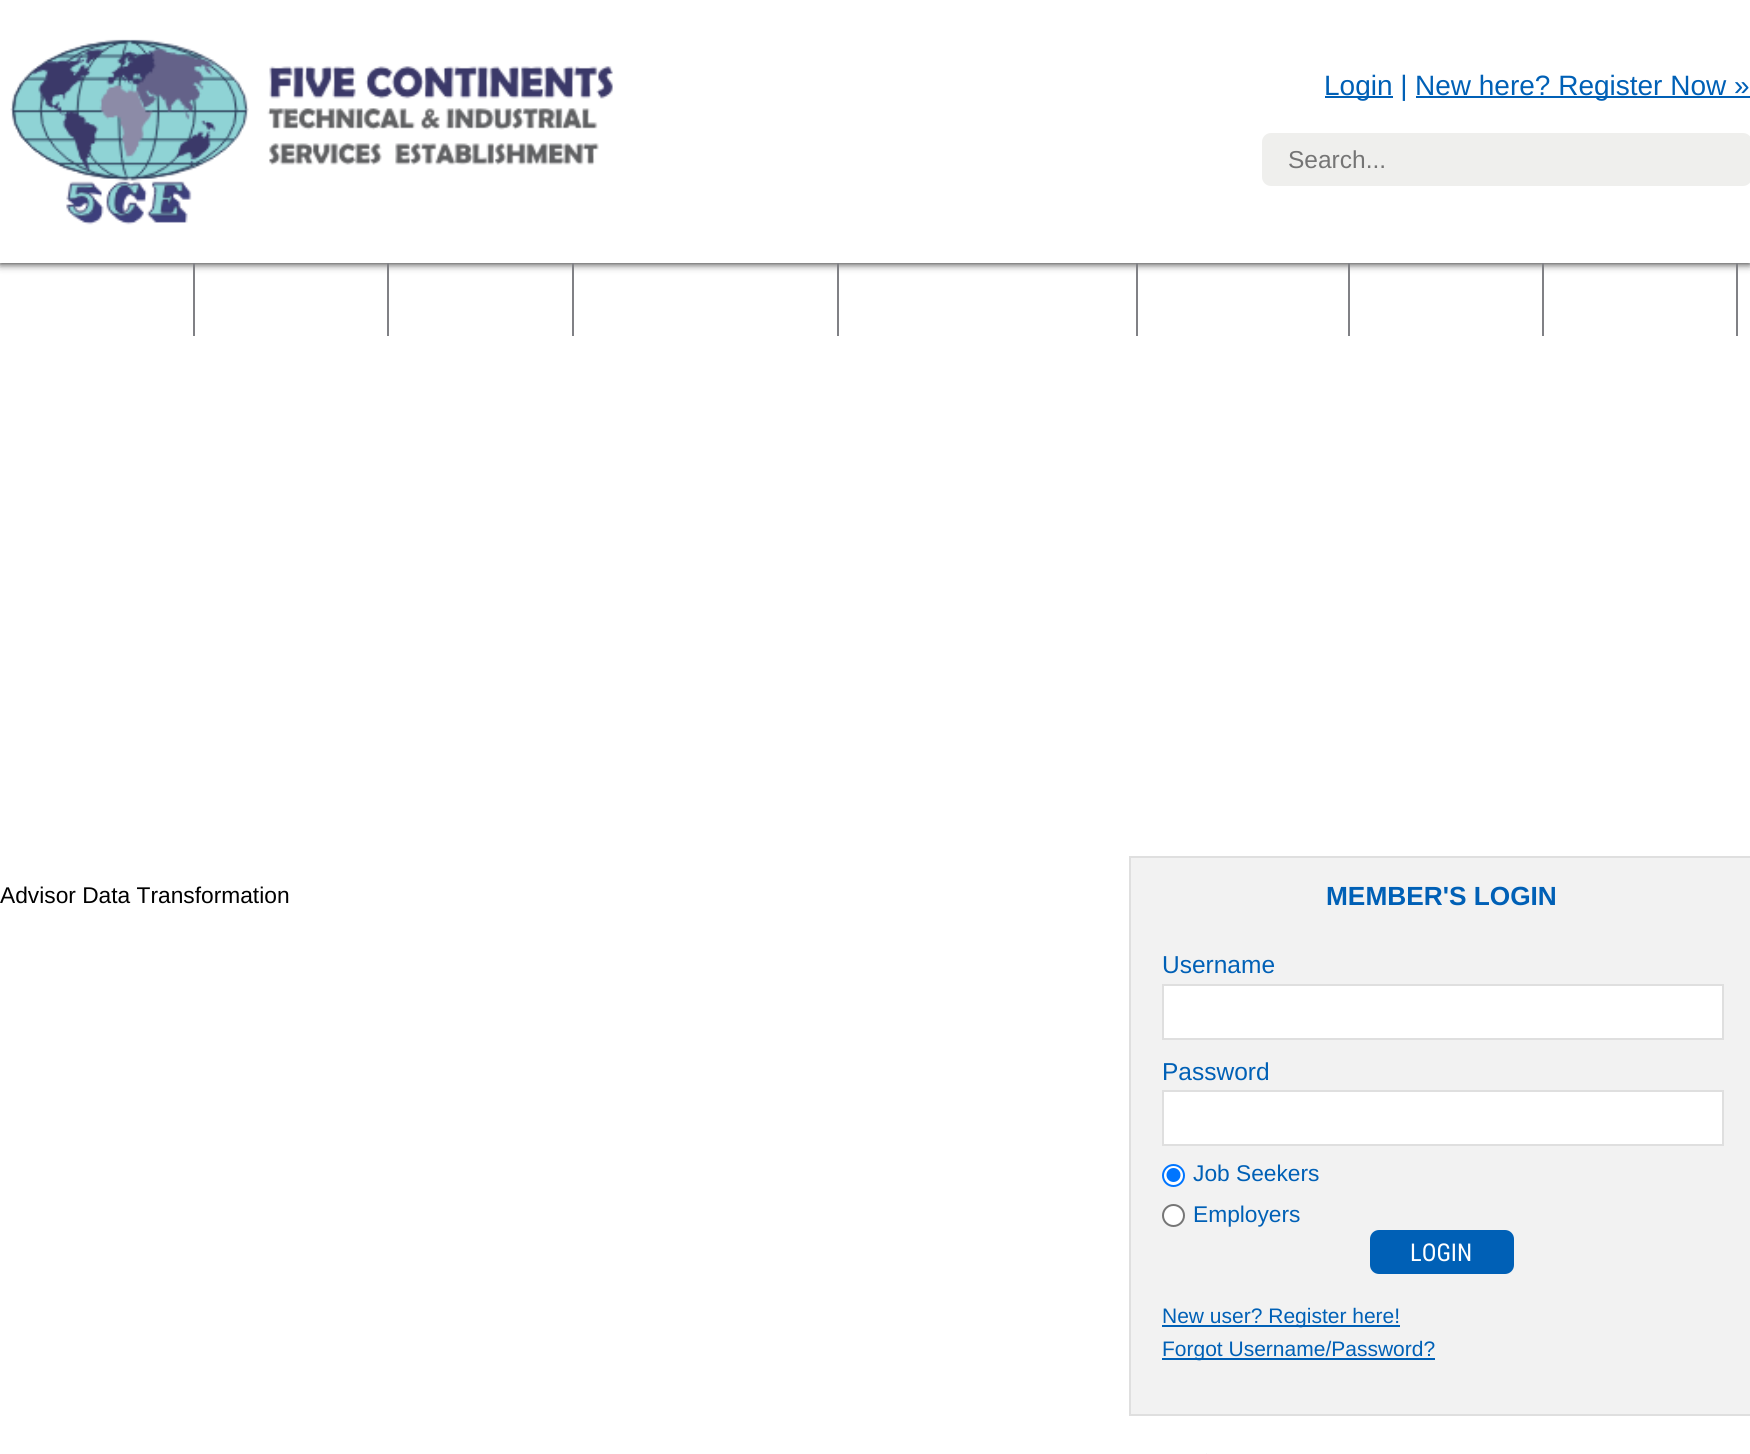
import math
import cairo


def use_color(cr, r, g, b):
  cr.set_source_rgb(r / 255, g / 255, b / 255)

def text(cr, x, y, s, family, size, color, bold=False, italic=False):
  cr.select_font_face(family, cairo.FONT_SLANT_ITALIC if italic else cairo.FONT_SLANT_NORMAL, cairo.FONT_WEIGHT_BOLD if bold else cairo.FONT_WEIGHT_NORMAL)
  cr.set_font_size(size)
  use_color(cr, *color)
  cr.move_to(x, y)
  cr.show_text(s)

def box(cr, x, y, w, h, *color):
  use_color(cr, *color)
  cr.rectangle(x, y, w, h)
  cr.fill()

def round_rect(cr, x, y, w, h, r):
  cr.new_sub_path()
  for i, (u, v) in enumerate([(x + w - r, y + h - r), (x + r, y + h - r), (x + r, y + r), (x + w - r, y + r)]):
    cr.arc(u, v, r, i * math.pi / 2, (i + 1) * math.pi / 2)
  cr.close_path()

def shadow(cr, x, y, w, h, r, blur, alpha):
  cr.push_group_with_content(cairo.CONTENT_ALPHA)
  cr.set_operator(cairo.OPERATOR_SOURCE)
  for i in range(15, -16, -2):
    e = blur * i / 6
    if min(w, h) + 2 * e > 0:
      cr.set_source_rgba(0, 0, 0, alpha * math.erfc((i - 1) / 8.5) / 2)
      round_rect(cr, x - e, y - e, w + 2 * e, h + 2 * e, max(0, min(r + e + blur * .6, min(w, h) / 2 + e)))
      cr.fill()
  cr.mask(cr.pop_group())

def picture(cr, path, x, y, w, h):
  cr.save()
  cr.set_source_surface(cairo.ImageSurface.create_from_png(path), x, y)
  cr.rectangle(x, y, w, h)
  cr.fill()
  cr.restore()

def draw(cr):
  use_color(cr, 255, 255, 255)
  cr.paint()
  cr.save()
  cr.set_fill_rule(cairo.FILL_RULE_EVEN_ODD)
  cr.new_path()
  cr.move_to(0, 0)
  cr.line_to(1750, 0)
  cr.line_to(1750, 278)
  cr.line_to(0, 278)
  cr.close_path()
  cr.move_to(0, 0)
  cr.line_to(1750, 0)
  cr.line_to(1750, 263)
  cr.line_to(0, 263)
  cr.close_path()
  cr.clip()
  use_color(cr, 0, 0, 0)
  shadow(cr, 0, 0, 1750, 263, 0, 4.5, 1)
  cr.restore()
  picture(cr, "img_01.png", 8, 39, 614, 224)
  box(cr, 1325, 96, 68, 2, 0, 96, 182)
  box(cr, 1416, 96, 334, 2, 0, 96, 182)
  use_color(cr, 239, 239, 237)
  round_rect(cr, 1262, 133, 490, 53, 9)
  cr.fill()
  box(cr, 193, 263, 2, 73, 128, 129, 133)
  box(cr, 387, 263, 2, 73, 128, 129, 133)
  box(cr, 572, 263, 2, 73, 128, 129, 133)
  box(cr, 837, 263, 2, 73, 128, 129, 133)
  box(cr, 1136, 263, 2, 73, 128, 129, 133)
  box(cr, 1348, 263, 2, 73, 128, 129, 133)
  box(cr, 1542, 263, 2, 73, 128, 129, 133)
  box(cr, 1736, 263, 2, 73, 128, 129, 133)
  use_color(cr, 242, 242, 242)
  cr.rectangle(1130, 857, 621, 558)
  cr.fill_preserve()
  use_color(cr, 223, 223, 223)
  cr.stroke()
  use_color(cr, 255, 255, 255)
  cr.rectangle(1163, 985, 560, 54)
  cr.fill_preserve()
  use_color(cr, 223, 223, 223)
  cr.stroke()
  use_color(cr, 255, 255, 255)
  cr.rectangle(1163, 1091, 560, 54)
  cr.fill_preserve()
  use_color(cr, 223, 223, 223)
  cr.stroke()
  use_color(cr, 255, 255, 255)
  cr.arc(1173.5, 1175.5, 10.5, 0, 2 * math.pi)
  cr.fill_preserve()
  use_color(cr, 0, 117, 255)
  cr.stroke()
  cr.arc(1173.5, 1175, 7, 0, 2 * math.pi)
  cr.fill()
  use_color(cr, 255, 255, 255)
  cr.arc(1173.5, 1215.5, 10.5, 0, 2 * math.pi)
  cr.fill_preserve()
  use_color(cr, 118, 118, 118)
  cr.stroke()
  use_color(cr, 0, 96, 182)
  round_rect(cr, 1370, 1230, 144, 44, 9)
  cr.fill()
  box(cr, 1162, 1325, 238, 2, 0, 96, 182)
  box(cr, 1162, 1358, 273, 2, 0, 96, 182)
  box(cr, 1206, 1453, 1, 1, 249, 249, 249)
  text(cr, 1324, 95, "Login |", "Liberation Sans", 28, (0, 96, 182))
  text(cr, 1415, 95, "New here? Register Now »", "Liberation Sans", 28, (0, 96, 182))
  text(cr, 1288, 168, "Search...", "Liberation Sans", 24.5, (117, 117, 117))
  text(cr, 0, 903, "Advisor Data Transformation", "Liberation Sans", 22.75, (0, 0, 0))
  text(cr, 1326, 905, "MEMBER'S LOGIN", "Liberation Sans", 26.25, (0, 96, 182), bold=True)
  text(cr, 1162, 973, "Username", "Liberation Sans", 24.5, (0, 96, 182))
  text(cr, 1162, 1080, "Password", "Liberation Sans", 24.5, (0, 96, 182))
  text(cr, 1193, 1181, "Job Seekers", "Liberation Sans", 22.75, (0, 96, 182))
  text(cr, 1193, 1222, "Employers", "Liberation Sans", 22.75, (0, 96, 182))
  text(cr, 1410, 1261, "LOGIN", "Roboto Condensed", 24.5, (255, 255, 255))
  text(cr, 1162, 1323, "New user? Register here!", "Liberation Sans", 21, (0, 96, 182))
  text(cr, 1162, 1356, "Forgot Username/Password?", "Liberation Sans", 21, (0, 96, 182))


surface = cairo.ImageSurface(cairo.FORMAT_RGB24, 1750, 1454)
cr = cairo.Context(surface)
options = cairo.FontOptions()
options.set_hint_metrics(cairo.HINT_METRICS_OFF)
options.set_hint_style(cairo.HINT_STYLE_NONE)
cr.set_font_options(options)
cr.set_miter_limit(4)
draw(cr)
surface.write_to_png("out.png")
